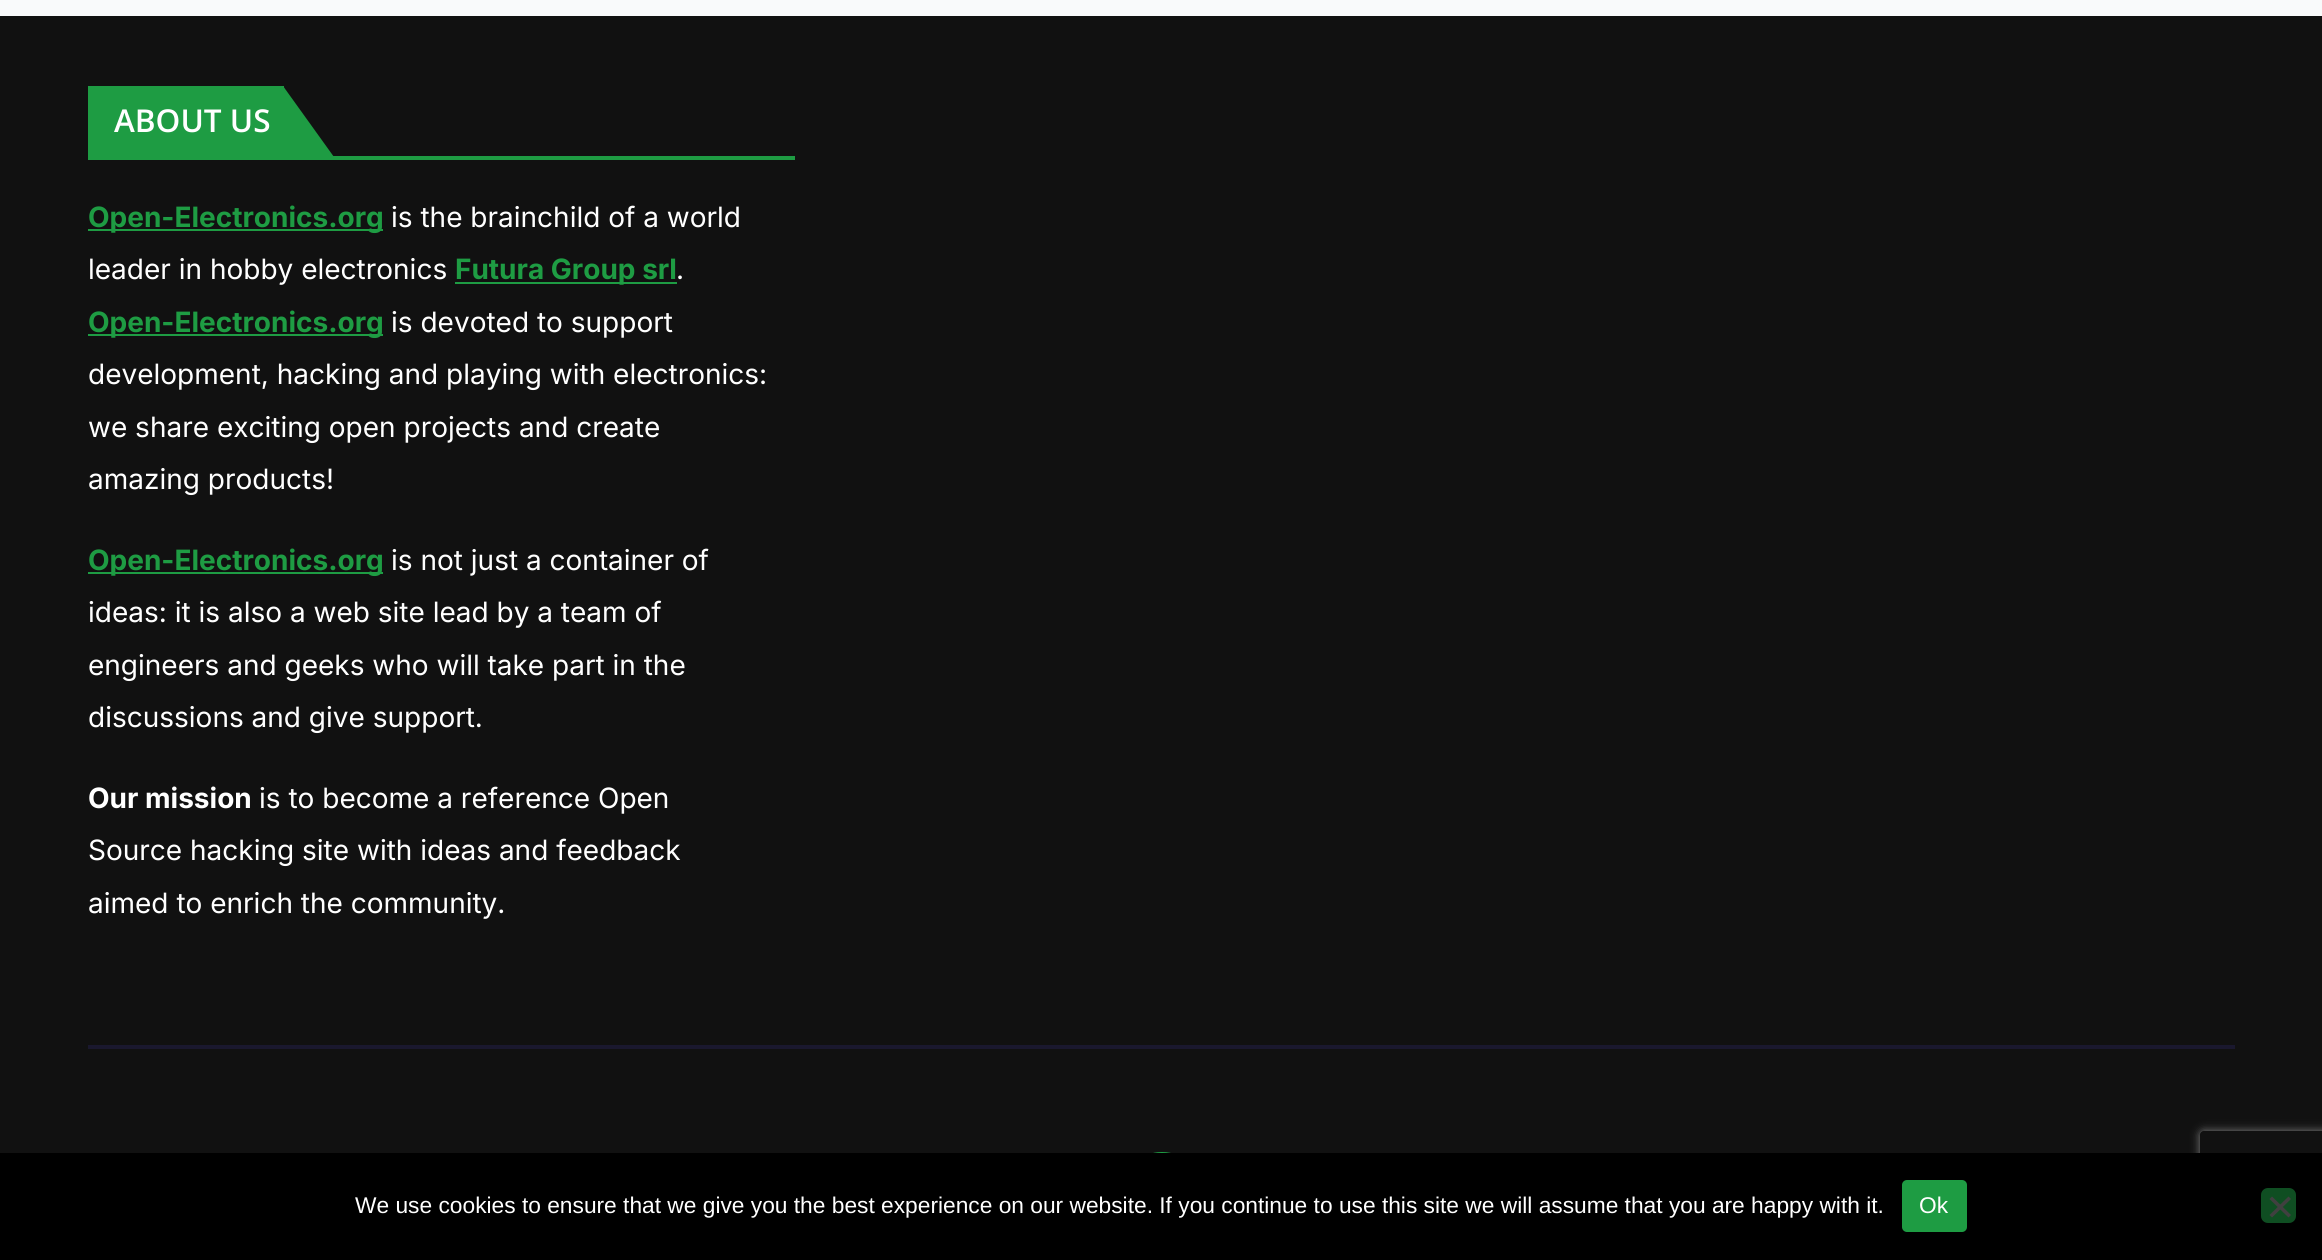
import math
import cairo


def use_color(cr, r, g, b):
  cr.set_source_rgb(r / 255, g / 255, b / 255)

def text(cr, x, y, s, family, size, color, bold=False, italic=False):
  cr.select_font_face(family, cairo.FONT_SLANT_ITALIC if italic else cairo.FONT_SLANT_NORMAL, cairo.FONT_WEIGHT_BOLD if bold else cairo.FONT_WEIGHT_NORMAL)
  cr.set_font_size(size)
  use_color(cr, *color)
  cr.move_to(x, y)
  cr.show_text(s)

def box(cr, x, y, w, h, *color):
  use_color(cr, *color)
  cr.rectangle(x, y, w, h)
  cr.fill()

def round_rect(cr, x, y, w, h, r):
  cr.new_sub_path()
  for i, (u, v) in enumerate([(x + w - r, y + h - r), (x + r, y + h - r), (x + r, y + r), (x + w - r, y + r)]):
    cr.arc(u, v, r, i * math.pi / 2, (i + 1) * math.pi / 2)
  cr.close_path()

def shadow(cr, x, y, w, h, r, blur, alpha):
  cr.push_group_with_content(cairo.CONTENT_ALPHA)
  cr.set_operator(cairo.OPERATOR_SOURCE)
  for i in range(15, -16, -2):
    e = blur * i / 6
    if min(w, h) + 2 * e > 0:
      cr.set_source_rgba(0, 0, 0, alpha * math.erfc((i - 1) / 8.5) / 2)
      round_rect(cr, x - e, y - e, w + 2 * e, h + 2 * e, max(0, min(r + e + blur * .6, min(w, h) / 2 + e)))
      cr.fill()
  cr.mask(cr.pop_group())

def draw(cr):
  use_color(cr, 249, 250, 251)
  cr.paint()
  box(cr, 0, 16, 2322, 1137, 17, 17, 17)
  box(cr, 88, 86, 196, 70, 30, 156, 67)
  cr.new_path()
  cr.move_to(283, 86)
  cr.line_to(282, 86)
  cr.line_to(282, 158)
  cr.line_to(334, 158)
  cr.line_to(334, 157)
  cr.close_path()
  cr.fill()
  box(cr, 88, 156, 707, 4, 30, 156, 67)
  box(cr, 88, 229, 295, 2, 30, 156, 67)
  box(cr, 455, 282, 222, 2, 30, 156, 67)
  box(cr, 88, 334, 295, 2, 30, 156, 67)
  box(cr, 88, 572, 295, 2, 30, 156, 67)
  box(cr, 88, 1045, 2147, 4, 26, 24, 46)
  use_color(cr, 30, 156, 67)
  round_rect(cr, 1125, 1152, 74, 73, 36.5)
  cr.fill()
  cr.save()
  cr.set_fill_rule(cairo.FILL_RULE_EVEN_ODD)
  cr.new_path()
  cr.move_to(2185, 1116)
  cr.line_to(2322, 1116)
  cr.line_to(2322, 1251)
  cr.line_to(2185, 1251)
  cr.close_path()
  cr.move_to(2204, 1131)
  cr.line_to(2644, 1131)
  cr.curve_to(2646, 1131, 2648, 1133, 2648, 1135)
  cr.line_to(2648, 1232)
  cr.curve_to(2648, 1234, 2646, 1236, 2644, 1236)
  cr.line_to(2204, 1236)
  cr.curve_to(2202, 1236, 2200, 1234, 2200, 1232)
  cr.line_to(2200, 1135)
  cr.curve_to(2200, 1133, 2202, 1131, 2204, 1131)
  cr.close_path()
  cr.clip()
  use_color(cr, 128, 128, 128)
  shadow(cr, 2200, 1131, 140, 105, 4, 4.5, 1)
  cr.restore()
  box(cr, 0, 1153, 2322, 107, 0, 0, 0)
  use_color(cr, 30, 156, 67)
  round_rect(cr, 1902, 1180, 65, 52, 5)
  cr.fill()
  use_color(cr, 15, 78, 34)
  round_rect(cr, 2261, 1188, 35, 35, 7)
  cr.fill()
  use_color(cr, 64, 64, 64)
  cr.new_path()
  cr.move_to(2288.5, 1196.5)
  cr.line_to(2291, 1199)
  cr.line_to(2272, 1217.5)
  cr.line_to(2269.5, 1215)
  cr.close_path()
  cr.fill()
  cr.new_path()
  cr.move_to(2269.5, 1199)
  cr.line_to(2272, 1196.5)
  cr.line_to(2291, 1215)
  cr.line_to(2288.5, 1217.5)
  cr.close_path()
  cr.fill()
  text(cr, 114, 132, "ABOUT US", "Open Sans SemiBold", 31.5, (255, 255, 255))
  text(cr, 88, 227, "Open-Electronics.org", "Inter", 28, (30, 156, 67), bold=True)
  text(cr, 391, 227, "is the brainchild of a world", "Inter", 28, (255, 255, 255))
  text(cr, 88, 279, "leader in hobby electronics", "Inter", 28, (255, 255, 255))
  text(cr, 455, 279, "Futura Group srl", "Inter", 28, (30, 156, 67), bold=True)
  text(cr, 676, 279, ".", "Inter", 28, (255, 255, 255))
  text(cr, 88, 332, "Open-Electronics.org", "Inter", 28, (30, 156, 67), bold=True)
  text(cr, 391, 332, "is devoted to support", "Inter", 28, (255, 255, 255))
  text(cr, 88, 384, "development, hacking and playing with electronics:", "Inter", 28, (255, 255, 255))
  text(cr, 88, 437, "we share exciting open projects and create", "Inter", 28, (255, 255, 255))
  text(cr, 88, 489, "amazing products!", "Inter", 28, (255, 255, 255))
  text(cr, 88, 570, "Open-Electronics.org", "Inter", 28, (30, 156, 67), bold=True)
  text(cr, 391, 570, "is not just a container of", "Inter", 28, (255, 255, 255))
  text(cr, 88, 622, "ideas: it is also a web site lead by a team of", "Inter", 28, (255, 255, 255))
  text(cr, 88, 675, "engineers and geeks who will take part in the", "Inter", 28, (255, 255, 255))
  text(cr, 88, 727, "discussions and give support.", "Inter", 28, (255, 255, 255))
  text(cr, 88, 808, "Our mission", "Inter", 28, (255, 255, 255), bold=True)
  text(cr, 259, 808, "is to become a reference Open", "Inter", 28, (255, 255, 255))
  text(cr, 88, 860, "Source hacking site with ideas and feedback", "Inter", 28, (255, 255, 255))
  text(cr, 88, 913, "aimed to enrich the community.", "Inter", 28, (255, 255, 255))
  text(cr, 355, 1213, "We use cookies to ensure that we give you the best experience on our website. If you continue to use this site we will assume that you are happy with it.", "Liberation Sans", 22.75, (255, 255, 255))
  text(cr, 1919, 1213, "Ok", "Liberation Sans", 22.75, (255, 255, 255))


surface = cairo.ImageSurface(cairo.FORMAT_RGB24, 2322, 1260)
cr = cairo.Context(surface)
options = cairo.FontOptions()
options.set_hint_metrics(cairo.HINT_METRICS_OFF)
options.set_hint_style(cairo.HINT_STYLE_NONE)
cr.set_font_options(options)
cr.set_miter_limit(4)
draw(cr)
surface.write_to_png("out.png")
